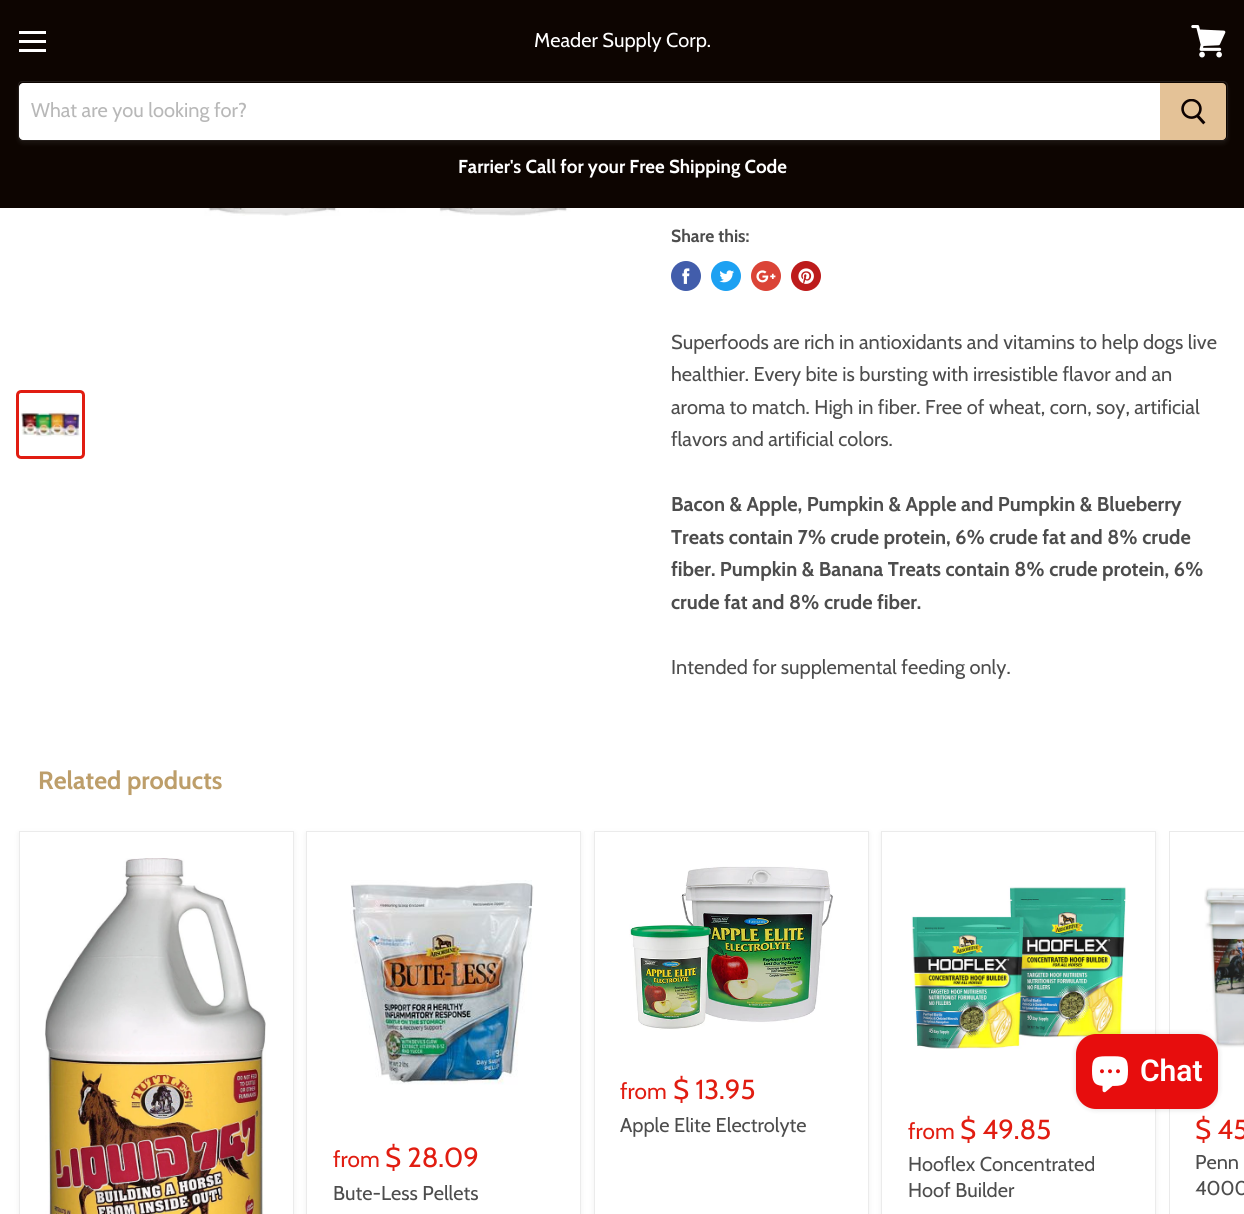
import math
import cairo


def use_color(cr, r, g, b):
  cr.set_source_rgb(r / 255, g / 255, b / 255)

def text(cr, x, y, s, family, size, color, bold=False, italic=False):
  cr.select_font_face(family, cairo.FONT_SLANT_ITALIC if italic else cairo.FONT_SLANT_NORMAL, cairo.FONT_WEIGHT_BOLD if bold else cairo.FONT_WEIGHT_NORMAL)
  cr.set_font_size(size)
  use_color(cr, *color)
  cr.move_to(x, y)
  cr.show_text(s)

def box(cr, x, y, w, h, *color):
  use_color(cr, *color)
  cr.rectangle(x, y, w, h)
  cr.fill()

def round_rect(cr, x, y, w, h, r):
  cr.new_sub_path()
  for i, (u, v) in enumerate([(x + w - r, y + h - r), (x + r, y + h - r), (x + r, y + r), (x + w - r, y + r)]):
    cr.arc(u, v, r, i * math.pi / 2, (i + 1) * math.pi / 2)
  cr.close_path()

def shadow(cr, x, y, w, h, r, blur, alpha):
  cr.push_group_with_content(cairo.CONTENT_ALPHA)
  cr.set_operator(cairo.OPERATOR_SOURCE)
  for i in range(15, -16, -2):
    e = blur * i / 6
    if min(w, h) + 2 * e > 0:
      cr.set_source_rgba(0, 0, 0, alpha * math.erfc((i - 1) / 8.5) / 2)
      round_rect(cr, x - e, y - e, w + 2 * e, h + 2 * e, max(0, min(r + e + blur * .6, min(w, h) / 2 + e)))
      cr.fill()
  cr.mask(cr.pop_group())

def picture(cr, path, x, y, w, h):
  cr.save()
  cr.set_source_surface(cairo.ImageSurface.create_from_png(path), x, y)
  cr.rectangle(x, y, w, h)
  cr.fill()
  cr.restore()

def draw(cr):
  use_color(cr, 255, 255, 255)
  cr.paint()
  box(cr, 0, 0, 1244, 208, 13, 5, 1)
  box(cr, 19, 31, 27, 3, 255, 255, 255)
  box(cr, 19, 40, 27, 3, 255, 255, 255)
  box(cr, 19, 49, 27, 3, 255, 255, 255)
  picture(cr, "img_01.png", 1191, 25, 35, 33)
  cr.save()
  cr.set_fill_rule(cairo.FILL_RULE_EVEN_ODD)
  cr.new_path()
  cr.move_to(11, 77)
  cr.line_to(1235, 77)
  cr.line_to(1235, 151)
  cr.line_to(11, 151)
  cr.close_path()
  cr.move_to(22, 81)
  cr.line_to(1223, 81)
  cr.curve_to(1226, 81, 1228, 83, 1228, 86)
  cr.line_to(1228, 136)
  cr.curve_to(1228, 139, 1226, 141, 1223, 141)
  cr.line_to(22, 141)
  cr.curve_to(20, 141, 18, 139, 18, 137)
  cr.line_to(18, 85)
  cr.curve_to(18, 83, 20, 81, 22, 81)
  cr.close_path()
  cr.clip()
  use_color(cr, 127, 127, 127)
  shadow(cr, 18, 84, 1210, 60, 5, 2, 0.11)
  cr.restore()
  cr.new_path()
  cr.move_to(22, 81.5)
  cr.line_to(1223, 81.5)
  cr.curve_to(1225.5, 81.5, 1227.5, 83.5, 1227.5, 86)
  cr.line_to(1227.5, 136)
  cr.curve_to(1227.5, 138.5, 1225.5, 140.5, 1223, 140.5)
  cr.line_to(22, 140.5)
  cr.curve_to(20, 140.5, 18.5, 139, 18.5, 137)
  cr.line_to(18.5, 85)
  cr.curve_to(18.5, 83, 20, 81.5, 22, 81.5)
  cr.close_path()
  cr.set_source_rgba(0.498, 0.498, 0.498, 0.2)
  cr.set_line_width(1)
  cr.stroke()
  use_color(cr, 255, 255, 255)
  cr.new_path()
  cr.move_to(23, 83)
  cr.line_to(1160, 83)
  cr.line_to(1160, 140)
  cr.line_to(23, 140)
  cr.curve_to(21, 140, 19, 138, 19, 136)
  cr.line_to(19, 87)
  cr.curve_to(19, 85, 21, 83, 23, 83)
  cr.close_path()
  cr.fill()
  use_color(cr, 228, 194, 151)
  cr.new_path()
  cr.move_to(1160.5, 83.5)
  cr.line_to(1222, 83.5)
  cr.curve_to(1224, 83.5, 1225.5, 85, 1225.5, 87)
  cr.line_to(1225.5, 136)
  cr.curve_to(1225.5, 138, 1224, 139.5, 1222, 139.5)
  cr.line_to(1160.5, 139.5)
  cr.close_path()
  cr.fill_preserve()
  cr.stroke()
  picture(cr, "img_02.png", 1181, 99, 25, 26)
  picture(cr, "img_03.png", 84, 208, 494, 8)
  round_rect(cr, 17.5, 391.5, 66, 66, 3.5)
  use_color(cr, 225, 29, 17)
  cr.set_line_width(3)
  cr.stroke()
  picture(cr, "img_04.png", 21, 410, 59, 27)
  use_color(cr, 66, 93, 171)
  cr.arc(686, 276, 15, 0, 2 * math.pi)
  cr.fill()
  picture(cr, "img_05.png", 682, 268, 8, 16)
  use_color(cr, 29, 161, 242)
  cr.arc(726, 276, 15, 0, 2 * math.pi)
  cr.fill()
  picture(cr, "img_06.png", 719, 270, 15, 13)
  use_color(cr, 219, 68, 55)
  cr.arc(766, 276, 15, 0, 2 * math.pi)
  cr.fill()
  picture(cr, "img_07.png", 756, 270, 20, 13)
  use_color(cr, 189, 28, 28)
  cr.arc(806, 276, 15, 0, 2 * math.pi)
  cr.fill()
  picture(cr, "img_08.png", 798, 268, 16, 16)
  use_color(cr, 127, 127, 127)
  shadow(cr, 19, 833, 275, 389, 0, 2.5, 0.11)
  use_color(cr, 255, 255, 255)
  cr.rectangle(19.5, 831.5, 274, 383)
  cr.fill_preserve()
  use_color(cr, 235, 235, 235)
  cr.set_line_width(1)
  cr.stroke()
  picture(cr, "img_09.png", 45, 858, 221, 356)
  use_color(cr, 127, 127, 127)
  shadow(cr, 594, 833, 275, 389, 0, 2.5, 0.11)
  use_color(cr, 255, 255, 255)
  cr.rectangle(594.5, 831.5, 274, 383)
  cr.fill_preserve()
  use_color(cr, 235, 235, 235)
  cr.stroke()
  picture(cr, "img_10.png", 629, 866, 204, 164)
  use_color(cr, 127, 127, 127)
  shadow(cr, 306, 833, 275, 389, 0, 2.5, 0.11)
  use_color(cr, 255, 255, 255)
  cr.rectangle(306.5, 831.5, 274, 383)
  cr.fill_preserve()
  use_color(cr, 235, 235, 235)
  cr.stroke()
  picture(cr, "img_11.png", 350, 880, 184, 205)
  use_color(cr, 127, 127, 127)
  shadow(cr, 881, 833, 275, 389, 0, 2.5, 0.11)
  use_color(cr, 255, 255, 255)
  cr.rectangle(881.5, 831.5, 274, 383)
  cr.fill_preserve()
  use_color(cr, 235, 235, 235)
  cr.stroke()
  picture(cr, "img_12.png", 911, 886, 215, 163)
  cr.rectangle(1169.5, 831.5, 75, 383)
  use_color(cr, 234, 234, 234)
  cr.stroke()
  picture(cr, "img_13.png", 1204, 887, 40, 161)
  use_color(cr, 0, 0, 0)
  shadow(cr, 1076, 1034, 142, 75, 20, 3, 0.15)
  use_color(cr, 231, 13, 13)
  round_rect(cr, 1076, 1034, 142, 75, 20)
  cr.fill()
  picture(cr, "img_14.png", 1092, 1056, 36, 37)
  text(cr, 534, 47, "Meader Supply Corp.", "Cabin", 20, (255, 255, 255))
  text(cr, 31, 117, "What are you looking for?", "Cabin", 20, (184, 184, 184))
  text(cr, 458, 173, "Farrier's Call for your Free Shipping Code", "Cabin", 18.75, (255, 255, 255), bold=True)
  text(cr, 671, 242, "Share this:", "Cabin", 17.5, (77, 77, 77), bold=True)
  text(cr, 671, 349, "Superfoods are rich in antioxidants and vitamins to help dogs live", "Cabin", 20, (77, 77, 77))
  text(cr, 671, 381, "healthier. Every bite is bursting with irresistible flavor and an", "Cabin", 20, (77, 77, 77))
  text(cr, 671, 414, "aroma to match. High in fiber. Free of wheat, corn, soy, artificial", "Cabin", 20, (77, 77, 77))
  text(cr, 671, 446, "flavors and artificial colors.", "Cabin", 20, (77, 77, 77))
  text(cr, 671, 511, "Bacon & Apple, Pumpkin & Apple and Pumpkin & Blueberry", "Cabin", 20, (77, 77, 77), bold=True)
  text(cr, 671, 544, "Treats contain 7% crude protein, 6% crude fat and 8% crude", "Cabin", 20, (77, 77, 77), bold=True)
  text(cr, 671, 576, "fiber. Pumpkin & Banana Treats contain 8% crude protein, 6%", "Cabin", 20, (77, 77, 77), bold=True)
  text(cr, 671, 609, "crude fat and 8% crude fiber.", "Cabin", 20, (77, 77, 77), bold=True)
  text(cr, 671, 674, "Intended for supplemental feeding only.", "Cabin", 20, (77, 77, 77))
  text(cr, 38, 789, "Related products", "Cabin", 25, (189, 158, 106), bold=True)
  text(cr, 620, 1099, "from", "Cabin", 22.5, (225, 29, 17))
  text(cr, 673, 1099, "$ 13.95", "Cabin", 27.5, (225, 29, 17))
  text(cr, 620, 1132, "Apple Elite Electrolyte", "Cabin", 20, (77, 77, 77))
  text(cr, 333, 1167, "from", "Cabin", 22.5, (225, 29, 17))
  text(cr, 385, 1167, "$ 28.09", "Cabin", 27.5, (225, 29, 17))
  text(cr, 333, 1200, "Bute-Less Pellets", "Cabin", 20, (77, 77, 77))
  text(cr, 908, 1139, "from", "Cabin", 22.5, (225, 29, 17))
  text(cr, 960, 1139, "$ 49.85", "Cabin", 27.5, (225, 29, 17))
  text(cr, 908, 1171, "Hooflex Concentrated", "Cabin", 20, (77, 77, 77))
  text(cr, 908, 1197, "Hoof Builder", "Cabin", 20, (77, 77, 77))
  text(cr, 1195, 1139, "$ 45", "Cabin", 27.5, (225, 29, 17))
  text(cr, 1195, 1169, "Penn", "Cabin", 20, (77, 77, 77))
  text(cr, 1195, 1195, "4000", "Cabin", 20, (77, 77, 77))
  text(cr, 1140, 1081, "Chat", "Roboto SemiBold", 30, (255, 255, 255))


surface = cairo.ImageSurface(cairo.FORMAT_RGB24, 1244, 1214)
cr = cairo.Context(surface)
options = cairo.FontOptions()
options.set_hint_metrics(cairo.HINT_METRICS_OFF)
options.set_hint_style(cairo.HINT_STYLE_NONE)
cr.set_font_options(options)
cr.set_miter_limit(4)
draw(cr)
surface.write_to_png("out.png")
